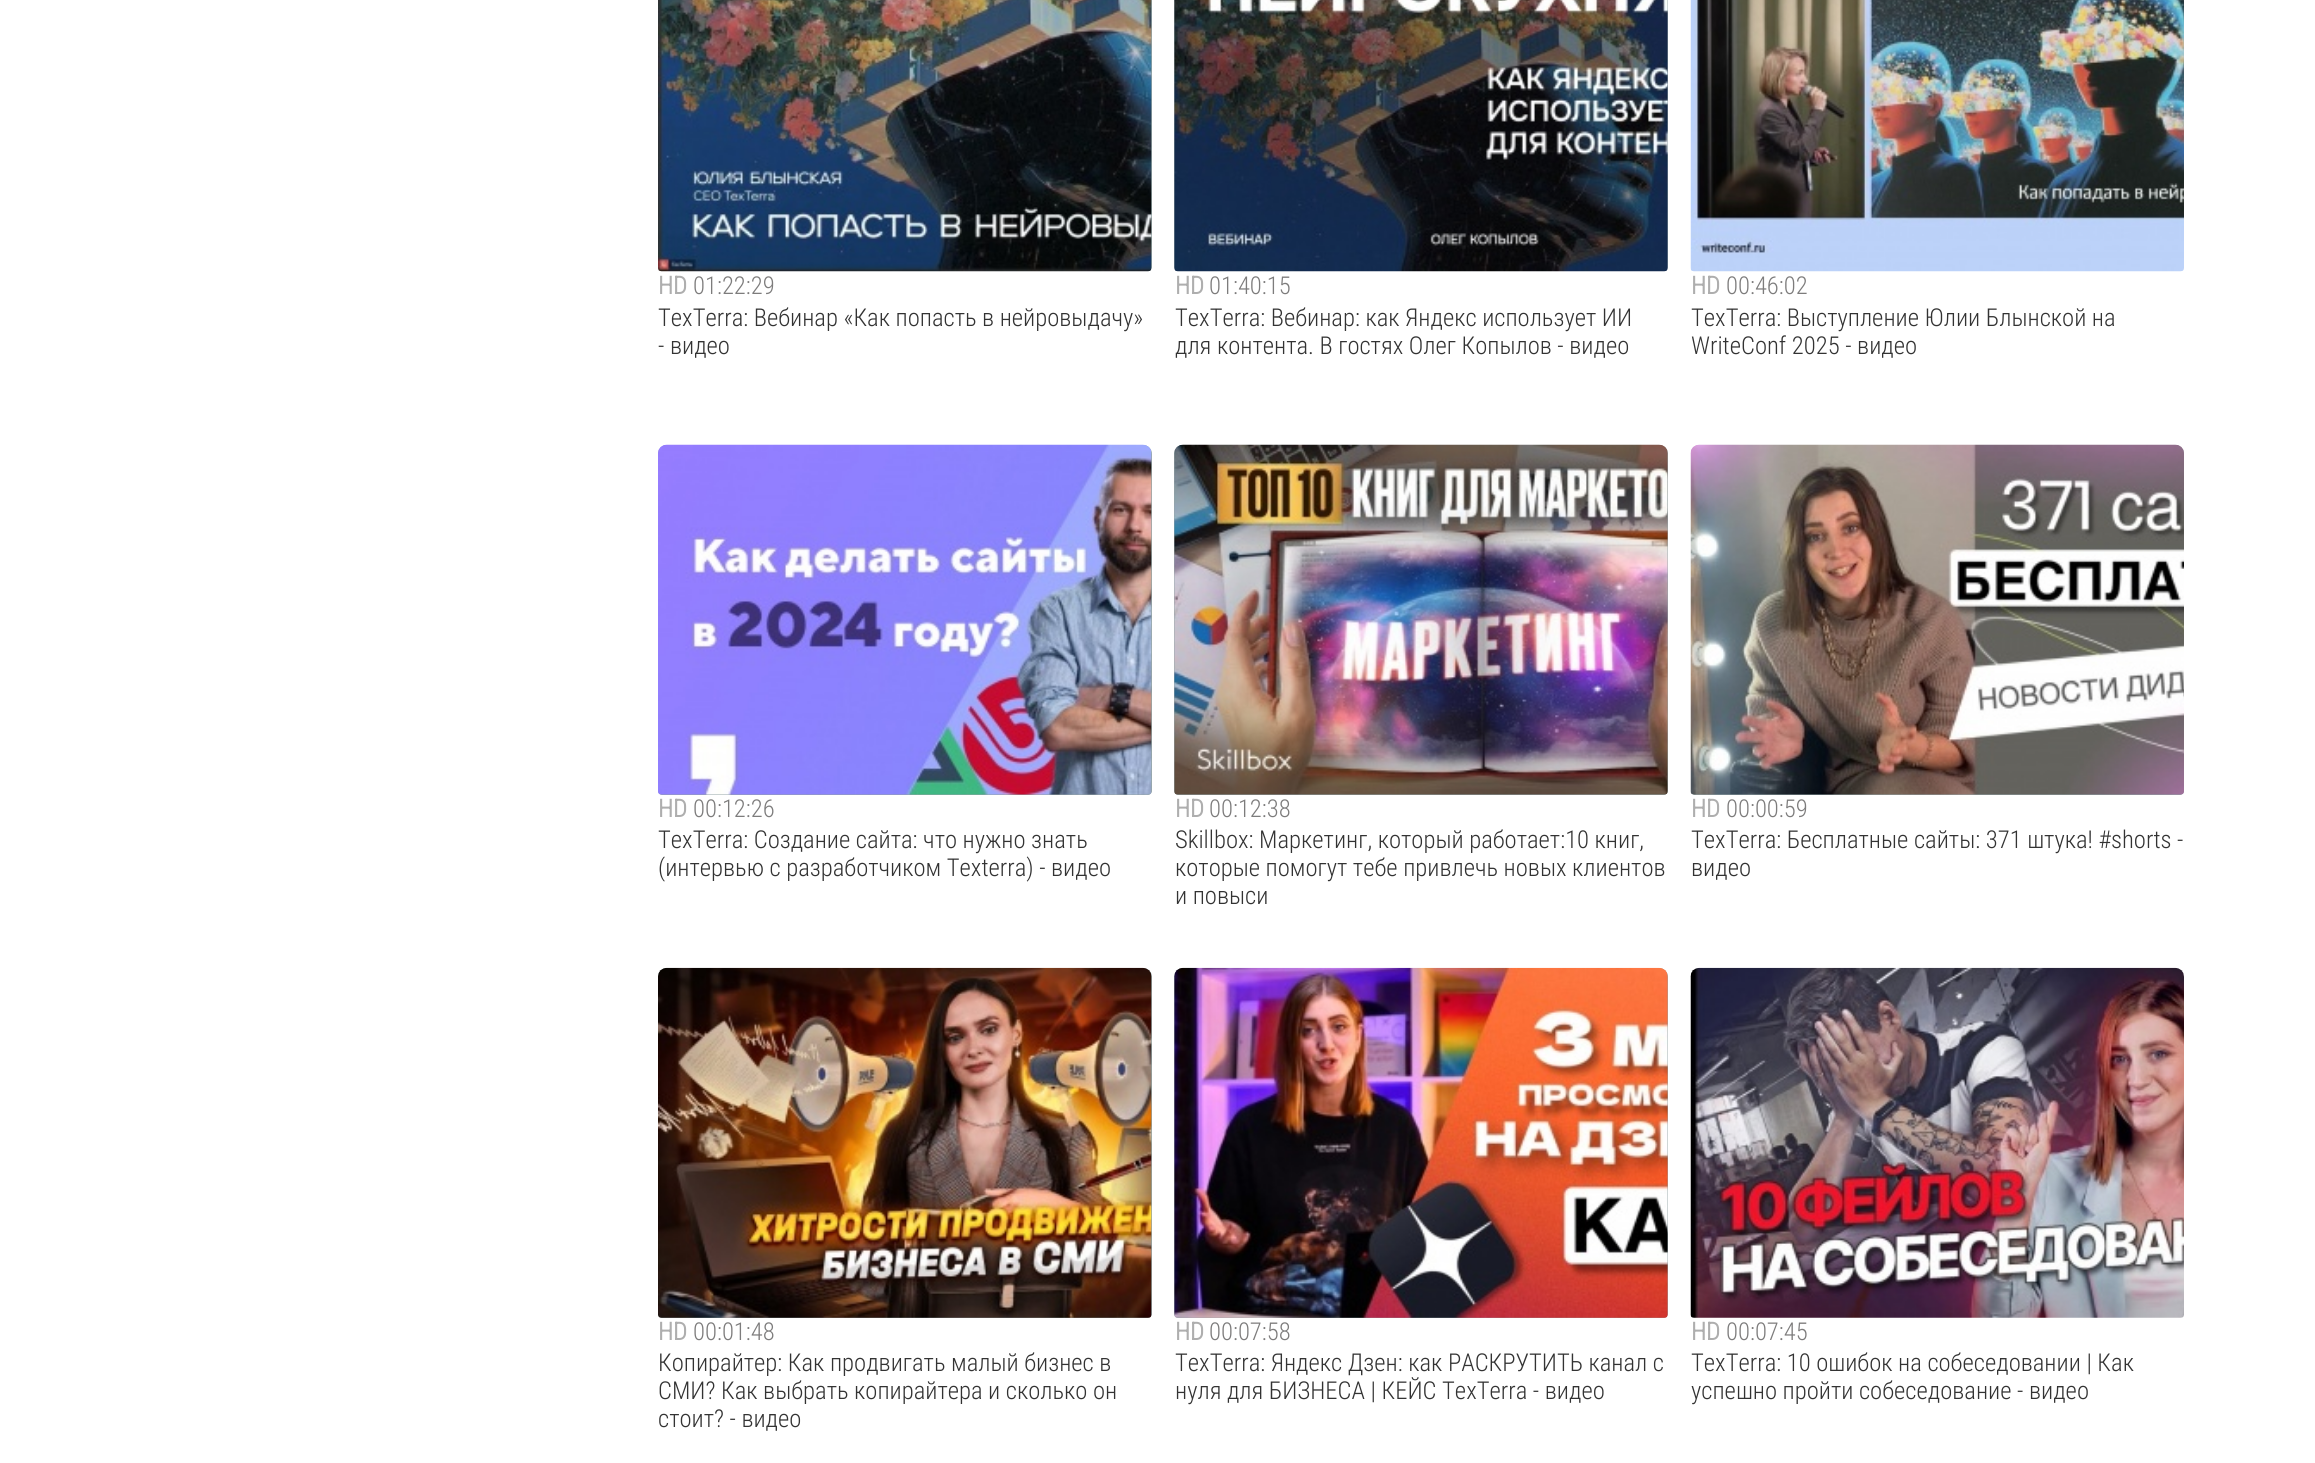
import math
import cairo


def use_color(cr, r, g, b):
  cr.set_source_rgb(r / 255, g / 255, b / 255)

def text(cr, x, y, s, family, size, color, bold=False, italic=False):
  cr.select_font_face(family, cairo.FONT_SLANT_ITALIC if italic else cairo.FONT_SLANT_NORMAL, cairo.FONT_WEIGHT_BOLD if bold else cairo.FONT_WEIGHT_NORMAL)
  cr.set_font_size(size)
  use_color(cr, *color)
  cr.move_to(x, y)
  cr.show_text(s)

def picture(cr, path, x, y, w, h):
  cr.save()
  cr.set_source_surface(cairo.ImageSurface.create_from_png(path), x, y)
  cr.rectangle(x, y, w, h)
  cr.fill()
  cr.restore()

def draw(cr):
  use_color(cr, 255, 255, 255)
  cr.paint()
  use_color(cr, 149, 165, 166)
  cr.new_path()
  cr.move_to(667, -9)
  cr.line_to(1143, -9)
  cr.curve_to(1148, -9, 1152, -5, 1152, 0)
  cr.line_to(1152, 267)
  cr.curve_to(1152, 269, 1150, 271, 1148, 271)
  cr.line_to(662, 271)
  cr.curve_to(660, 271, 658, 269, 658, 267)
  cr.line_to(658, 0)
  cr.curve_to(658, -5, 662, -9, 667, -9)
  cr.close_path()
  cr.fill()
  picture(cr, "img_01.png", 658, 0, 494, 272)
  cr.new_path()
  cr.move_to(1183, -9)
  cr.line_to(1659, -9)
  cr.curve_to(1664, -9, 1668, -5, 1668, 0)
  cr.line_to(1668, 267)
  cr.curve_to(1668, 269, 1666, 271, 1664, 271)
  cr.line_to(1178, 271)
  cr.curve_to(1176, 271, 1174, 269, 1174, 267)
  cr.line_to(1174, 0)
  cr.curve_to(1174, -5, 1178, -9, 1183, -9)
  cr.close_path()
  cr.fill()
  picture(cr, "img_02.png", 1174, 0, 494, 272)
  picture(cr, "img_03.png", 1690, 0, 494, 272)
  cr.new_path()
  cr.move_to(667, 445)
  cr.line_to(1143, 445)
  cr.curve_to(1148, 445, 1152, 449, 1152, 454)
  cr.line_to(1152, 791)
  cr.curve_to(1152, 793, 1150, 795, 1148, 795)
  cr.line_to(662, 795)
  cr.curve_to(660, 795, 658, 793, 658, 791)
  cr.line_to(658, 454)
  cr.curve_to(658, 449, 662, 445, 667, 445)
  cr.close_path()
  cr.fill()
  picture(cr, "img_04.png", 658, 444, 494, 351)
  cr.new_path()
  cr.move_to(1183, 445)
  cr.line_to(1659, 445)
  cr.curve_to(1664, 445, 1668, 449, 1668, 454)
  cr.line_to(1668, 791)
  cr.curve_to(1668, 793, 1666, 795, 1664, 795)
  cr.line_to(1178, 795)
  cr.curve_to(1176, 795, 1174, 793, 1174, 791)
  cr.line_to(1174, 454)
  cr.curve_to(1174, 449, 1178, 445, 1183, 445)
  cr.close_path()
  cr.fill()
  picture(cr, "img_05.png", 1174, 444, 494, 351)
  cr.new_path()
  cr.move_to(1700, 445)
  cr.line_to(2175, 445)
  cr.curve_to(2180, 445, 2184, 449, 2184, 454)
  cr.line_to(2184, 791)
  cr.curve_to(2184, 793, 2182, 795, 2180, 795)
  cr.line_to(1695, 795)
  cr.curve_to(1693, 795, 1691, 793, 1691, 791)
  cr.line_to(1691, 454)
  cr.curve_to(1691, 449, 1695, 445, 1700, 445)
  cr.close_path()
  cr.fill()
  picture(cr, "img_06.png", 1690, 444, 494, 351)
  cr.new_path()
  cr.move_to(667, 968)
  cr.line_to(1143, 968)
  cr.curve_to(1148, 968, 1152, 972, 1152, 977)
  cr.line_to(1152, 1314)
  cr.curve_to(1152, 1316, 1150, 1318, 1148, 1318)
  cr.line_to(662, 1318)
  cr.curve_to(660, 1318, 658, 1316, 658, 1314)
  cr.line_to(658, 977)
  cr.curve_to(658, 972, 662, 968, 667, 968)
  cr.close_path()
  cr.fill()
  picture(cr, "img_07.png", 658, 967, 494, 351)
  cr.new_path()
  cr.move_to(1183, 968)
  cr.line_to(1659, 968)
  cr.curve_to(1664, 968, 1668, 972, 1668, 977)
  cr.line_to(1668, 1314)
  cr.curve_to(1668, 1316, 1666, 1318, 1664, 1318)
  cr.line_to(1178, 1318)
  cr.curve_to(1176, 1318, 1174, 1316, 1174, 1314)
  cr.line_to(1174, 977)
  cr.curve_to(1174, 972, 1178, 968, 1183, 968)
  cr.close_path()
  cr.fill()
  picture(cr, "img_08.png", 1174, 967, 494, 351)
  picture(cr, "img_09.png", 1690, 967, 494, 351)
  text(cr, 658, 294, "HD", "Roboto Condensed", 24.6, (174, 174, 174), bold=True)
  text(cr, 693, 294, "01:22:29", "Roboto Condensed Light", 24.6, (125, 124, 124))
  text(cr, 658, 326, "TexTerra: Вебинар «Как попасть в нейровыдачу»", "Roboto Condensed Light", 24.6, (51, 51, 51))
  text(cr, 658, 354, "- видео", "Roboto Condensed Light", 24.6, (51, 51, 51))
  text(cr, 1175, 294, "HD", "Roboto Condensed", 24.6, (174, 174, 174), bold=True)
  text(cr, 1209, 294, "01:40:15", "Roboto Condensed Light", 24.6, (125, 124, 124))
  text(cr, 1175, 326, "TexTerra: Вебинар: как Яндекс использует ИИ", "Roboto Condensed Light", 24.6, (51, 51, 51))
  text(cr, 1175, 354, "для контента. В гостях Олег Копылов - видео", "Roboto Condensed Light", 24.6, (51, 51, 51))
  text(cr, 1691, 294, "HD", "Roboto Condensed", 24.6, (174, 174, 174), bold=True)
  text(cr, 1726, 294, "00:46:02", "Roboto Condensed Light", 24.6, (125, 124, 124))
  text(cr, 1691, 326, "TexTerra: Выступление Юлии Блынской на", "Roboto Condensed Light", 24.6, (51, 51, 51))
  text(cr, 1691, 354, "WriteConf 2025 - видео", "Roboto Condensed Light", 24.6, (51, 51, 51))
  text(cr, 658, 817, "HD", "Roboto Condensed", 24.6, (174, 174, 174), bold=True)
  text(cr, 693, 817, "00:12:26", "Roboto Condensed Light", 24.6, (125, 124, 124))
  text(cr, 658, 848, "TexTerra: Создание сайта: что нужно знать", "Roboto Condensed Light", 24.6, (51, 51, 51))
  text(cr, 658, 876, "(интервью с разработчиком Texterra) - видео", "Roboto Condensed Light", 24.6, (51, 51, 51))
  text(cr, 1175, 817, "HD", "Roboto Condensed", 24.6, (174, 174, 174), bold=True)
  text(cr, 1209, 817, "00:12:38", "Roboto Condensed Light", 24.6, (125, 124, 124))
  text(cr, 1175, 848, "Skillbox: Маркетинг, который работает:10 книг,", "Roboto Condensed Light", 24.6, (51, 51, 51))
  text(cr, 1175, 876, "которые помогут тебе привлечь новых клиентов", "Roboto Condensed Light", 24.6, (51, 51, 51))
  text(cr, 1175, 904, "и повыси", "Roboto Condensed Light", 24.6, (51, 51, 51))
  text(cr, 1691, 817, "HD", "Roboto Condensed", 24.6, (174, 174, 174), bold=True)
  text(cr, 1726, 817, "00:00:59", "Roboto Condensed Light", 24.6, (125, 124, 124))
  text(cr, 1691, 848, "TexTerra: Бесплатные сайты: 371 штука! #shorts -", "Roboto Condensed Light", 24.6, (51, 51, 51))
  text(cr, 1691, 876, "видео", "Roboto Condensed Light", 24.6, (51, 51, 51))
  text(cr, 658, 1340, "HD", "Roboto Condensed", 24.6, (174, 174, 174), bold=True)
  text(cr, 693, 1340, "00:01:48", "Roboto Condensed Light", 24.6, (125, 124, 124))
  text(cr, 658, 1371, "Копирайтер: Как продвигать малый бизнес в", "Roboto Condensed Light", 24.6, (51, 51, 51))
  text(cr, 658, 1399, "СМИ? Как выбрать копирайтера и сколько он", "Roboto Condensed Light", 24.6, (51, 51, 51))
  text(cr, 658, 1427, "стоит? - видео", "Roboto Condensed Light", 24.6, (51, 51, 51))
  text(cr, 1175, 1340, "HD", "Roboto Condensed", 24.6, (174, 174, 174), bold=True)
  text(cr, 1209, 1340, "00:07:58", "Roboto Condensed Light", 24.6, (125, 124, 124))
  text(cr, 1175, 1371, "TexTerra: Яндекс Дзен: как РАСКРУТИТЬ канал с", "Roboto Condensed Light", 24.6, (51, 51, 51))
  text(cr, 1175, 1399, "нуля для БИЗНЕСА | КЕЙС TexTerra - видео", "Roboto Condensed Light", 24.6, (51, 51, 51))
  text(cr, 1691, 1340, "HD", "Roboto Condensed", 24.6, (174, 174, 174), bold=True)
  text(cr, 1726, 1340, "00:07:45", "Roboto Condensed Light", 24.6, (125, 124, 124))
  text(cr, 1691, 1371, "TexTerra: 10 ошибок на собеседовании | Как", "Roboto Condensed Light", 24.6, (51, 51, 51))
  text(cr, 1691, 1399, "успешно пройти собеседование - видео", "Roboto Condensed Light", 24.6, (51, 51, 51))


surface = cairo.ImageSurface(cairo.FORMAT_RGB24, 2315, 1463)
cr = cairo.Context(surface)
options = cairo.FontOptions()
options.set_hint_metrics(cairo.HINT_METRICS_OFF)
options.set_hint_style(cairo.HINT_STYLE_NONE)
cr.set_font_options(options)
cr.set_miter_limit(4)
draw(cr)
surface.write_to_png("out.png")
